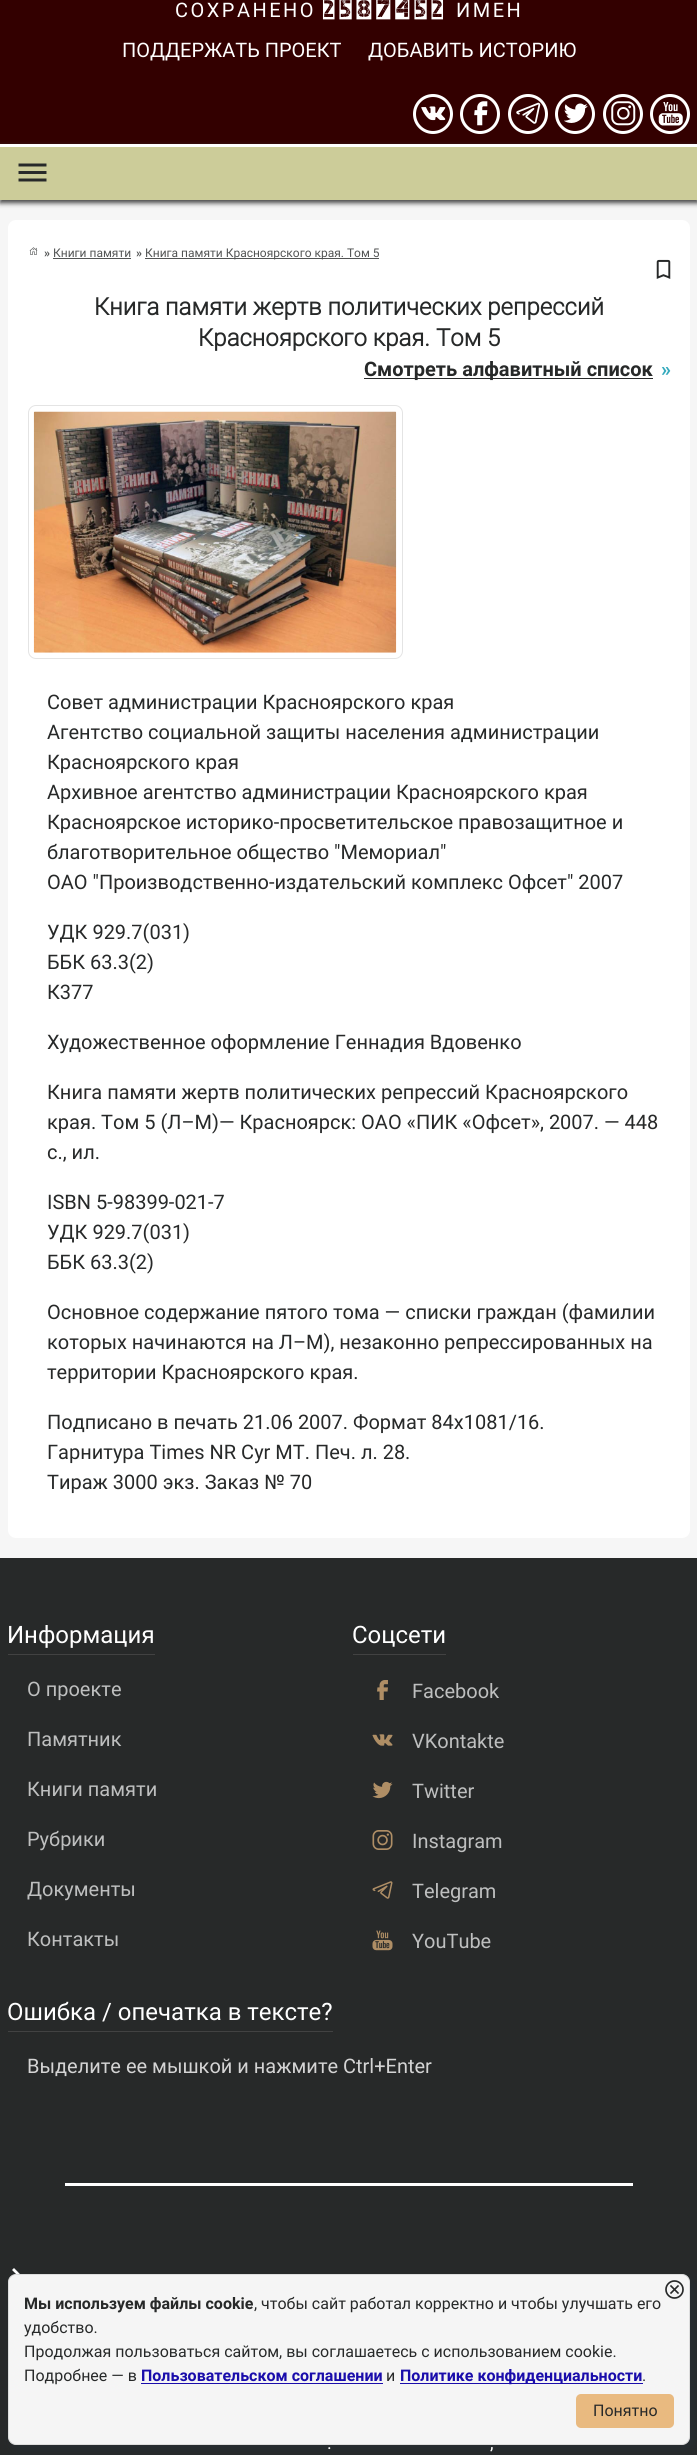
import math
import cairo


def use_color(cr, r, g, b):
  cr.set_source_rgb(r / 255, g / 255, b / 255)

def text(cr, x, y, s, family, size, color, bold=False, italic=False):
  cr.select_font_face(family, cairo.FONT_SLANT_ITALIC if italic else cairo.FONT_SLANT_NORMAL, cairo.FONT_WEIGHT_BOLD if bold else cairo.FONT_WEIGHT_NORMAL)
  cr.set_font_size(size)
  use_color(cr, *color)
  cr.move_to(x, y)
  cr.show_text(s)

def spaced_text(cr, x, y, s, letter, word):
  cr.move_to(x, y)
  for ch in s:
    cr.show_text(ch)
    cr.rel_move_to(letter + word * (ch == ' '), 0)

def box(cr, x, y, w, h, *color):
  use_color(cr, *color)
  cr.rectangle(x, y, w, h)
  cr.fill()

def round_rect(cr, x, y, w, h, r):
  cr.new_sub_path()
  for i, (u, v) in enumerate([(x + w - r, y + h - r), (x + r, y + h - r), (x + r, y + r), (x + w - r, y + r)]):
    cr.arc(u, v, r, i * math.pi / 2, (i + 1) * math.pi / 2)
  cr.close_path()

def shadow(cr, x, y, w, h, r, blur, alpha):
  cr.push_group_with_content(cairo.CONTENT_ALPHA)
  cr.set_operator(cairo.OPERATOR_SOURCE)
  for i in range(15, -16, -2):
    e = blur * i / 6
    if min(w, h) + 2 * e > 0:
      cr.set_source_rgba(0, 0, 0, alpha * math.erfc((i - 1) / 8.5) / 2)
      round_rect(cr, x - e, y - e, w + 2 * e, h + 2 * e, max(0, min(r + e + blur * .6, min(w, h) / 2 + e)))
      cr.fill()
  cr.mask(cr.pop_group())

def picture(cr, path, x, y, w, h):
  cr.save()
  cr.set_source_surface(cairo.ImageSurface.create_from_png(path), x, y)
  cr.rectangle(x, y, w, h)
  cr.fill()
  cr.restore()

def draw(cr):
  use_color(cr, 246, 246, 246)
  cr.paint()
  box(cr, 0, 0, 697, 144, 51, 0, 0)
  cr.arc(433, 114, 18.5, 0, 2 * math.pi)
  use_color(cr, 255, 255, 255)
  cr.set_line_width(3)
  cr.stroke()
  picture(cr, "img_01.png", 421, 106, 25, 15)
  cr.arc(480, 114, 18.5, 0, 2 * math.pi)
  cr.stroke()
  picture(cr, "img_02.png", 474, 101, 14, 25)
  cr.arc(528, 114, 18.5, 0, 2 * math.pi)
  cr.stroke()
  picture(cr, "img_03.png", 516, 102, 25, 22)
  cr.arc(575, 114, 18.5, 0, 2 * math.pi)
  cr.stroke()
  picture(cr, "img_04.png", 564, 103, 24, 20)
  cr.arc(623, 114, 18.5, 0, 2 * math.pi)
  cr.stroke()
  picture(cr, "img_05.png", 611, 101, 25, 25)
  cr.arc(670, 114, 18.5, 0, 2 * math.pi)
  cr.stroke()
  picture(cr, "img_06.png", 658, 102, 25, 24)
  use_color(cr, 66, 66, 66)
  shadow(cr, 0, 146, 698, 57, 0, 2.5, 1)
  box(cr, 0, 147, 697, 53, 204, 204, 153)
  box(cr, 0, 144, 697, 3, 255, 255, 255)
  picture(cr, "img_07.png", 18, 163, 29, 19)
  round_rect(cr, 8, 220, 682, 1318, 8)
  cr.fill()
  picture(cr, "img_08.png", 29, 247, 9, 8)
  box(cr, 53, 258, 78, 1, 82, 84, 84)
  box(cr, 145, 258, 234, 1, 82, 84, 84)
  picture(cr, "img_09.png", 656, 259, 15, 20)
  box(cr, 364, 378, 289, 1, 39, 41, 41)
  round_rect(cr, 28.5, 405.5, 374, 253, 7.5)
  use_color(cr, 228, 228, 228)
  cr.set_line_width(1)
  cr.stroke()
  picture(cr, "img_10.png", 33, 411, 364, 242)
  box(cr, 0, 1558, 697, 897, 39, 41, 41)
  box(cr, 8, 1654, 147, 1, 66, 66, 66)
  box(cr, 353, 1654, 93, 1, 66, 66, 66)
  picture(cr, "img_11.png", 377, 1680, 11, 20)
  picture(cr, "img_12.png", 372, 1734, 21, 12)
  picture(cr, "img_13.png", 372, 1781, 21, 18)
  picture(cr, "img_14.png", 372, 1830, 21, 20)
  picture(cr, "img_15.png", 372, 1881, 21, 18)
  picture(cr, "img_16.png", 372, 1930, 21, 21)
  box(cr, 8, 2031, 325, 1, 66, 66, 66)
  box(cr, 65, 2183, 568, 3, 255, 255, 255)
  cr.new_path()
  cr.move_to(14, 2268)
  cr.line_to(42, 2296.5)
  cr.line_to(40.5, 2298.5)
  cr.line_to(12, 2270)
  cr.close_path()
  cr.fill()
  use_color(cr, 34, 60, 80)
  shadow(cr, 13, 2279, 682, 171, 8, 5, 0.2)
  use_color(cr, 245, 245, 245)
  round_rect(cr, 8.5, 2274.5, 681, 170, 7.5)
  cr.fill_preserve()
  use_color(cr, 221, 221, 221)
  cr.stroke()
  picture(cr, "img_17.png", 665, 2280, 19, 19)
  box(cr, 141, 2383, 242, 1, 26, 13, 171)
  box(cr, 400, 2383, 243, 1, 26, 13, 171)
  use_color(cr, 233, 186, 128)
  round_rect(cr, 576, 2394, 98, 34, 5)
  cr.fill()
  cr.select_font_face("Roboto")
  cr.set_font_size(20)
  use_color(cr, 255, 255, 255)
  spaced_text(cr, 175, 17, "СОХРАНЕНО", 2.5, 0)
  cr.select_font_face("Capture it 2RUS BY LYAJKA")
  cr.set_font_size(24)
  spaced_text(cr, 323, 17, "2587452", 5, 0)
  cr.select_font_face("Roboto")
  cr.set_font_size(20)
  spaced_text(cr, 456, 17, "ИМЕН", 2.5, 0)
  text(cr, 122, 57, "ПОДДЕРЖАТЬ ПРОЕКТ", "Roboto", 20, (255, 255, 255))
  text(cr, 368, 57, "ДОБАВИТЬ ИСТОРИЮ", "Roboto", 20, (255, 255, 255))
  text(cr, 44, 257, "»", "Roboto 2", 12, (82, 84, 84), bold=True)
  text(cr, 53, 257, "Книги памяти", "Roboto", 12, (82, 84, 84))
  text(cr, 136, 257, "»", "Roboto 2", 12, (82, 84, 84), bold=True)
  text(cr, 145, 257, "Книга памяти Красноярского края. Том 5", "Roboto", 12, (82, 84, 84))
  text(cr, 94, 315, "Книга памяти жертв политических репрессий", "Roboto", 24, (39, 41, 41), bold=True)
  text(cr, 198, 346, "Красноярского края. Том 5", "Roboto", 24, (39, 41, 41), bold=True)
  text(cr, 364, 376, "Смотреть алфавитный список", "Roboto 2", 20, (39, 41, 41), bold=True)
  text(cr, 661, 376, "»", "Roboto 2", 20, (52, 170, 189), bold=True)
  text(cr, 47, 709, "Совет администрации Красноярского края", "Roboto", 20, (39, 41, 41))
  text(cr, 47, 739, "Агентство социальной защиты населения администрации", "Roboto", 20, (39, 41, 41))
  text(cr, 47, 769, "Красноярского края", "Roboto", 20, (39, 41, 41))
  text(cr, 47, 799, "Архивное агентство администрации Красноярского края", "Roboto", 20, (39, 41, 41))
  text(cr, 47, 829, "Красноярское историко-просветительское правозащитное и", "Roboto", 20, (39, 41, 41))
  text(cr, 47, 859, "благотворительное общество \"Мемориал\"", "Roboto", 20, (39, 41, 41))
  text(cr, 47, 889, "ОАО \"Производственно-издательский комплекс Офсет\" 2007", "Roboto", 20, (39, 41, 41))
  text(cr, 47, 939, "УДК 929.7(031)", "Roboto", 20, (39, 41, 41))
  text(cr, 47, 969, "ББК 63.3(2)", "Roboto", 20, (39, 41, 41))
  text(cr, 47, 999, "К377", "Roboto", 20, (39, 41, 41))
  text(cr, 47, 1049, "Художественное оформление Геннадия Вдовенко", "Roboto", 20, (39, 41, 41))
  text(cr, 47, 1099, "Книга памяти жертв политических репрессий Красноярского", "Roboto", 20, (39, 41, 41))
  text(cr, 47, 1129, "края. Том 5 (Л–М)— Красноярск: ОАО «ПИК «Офсет», 2007. — 448", "Roboto", 20, (39, 41, 41))
  text(cr, 47, 1159, "с., ил.", "Roboto", 20, (39, 41, 41))
  text(cr, 47, 1209, "ISBN 5-98399-021-7", "Roboto", 20, (39, 41, 41))
  text(cr, 47, 1239, "УДК 929.7(031)", "Roboto", 20, (39, 41, 41))
  text(cr, 47, 1269, "ББК 63.3(2)", "Roboto", 20, (39, 41, 41))
  text(cr, 47, 1319, "Основное содержание пятого тома — списки граждан (фамилии", "Roboto", 20, (39, 41, 41))
  text(cr, 47, 1349, "которых начинаются на Л–М), незаконно репрессированных на", "Roboto", 20, (39, 41, 41))
  text(cr, 47, 1379, "территории Красноярского края.", "Roboto", 20, (39, 41, 41))
  text(cr, 47, 1429, "Подписано в печать 21.06 2007. Формат 84х1081/16.", "Roboto", 20, (39, 41, 41))
  text(cr, 47, 1459, "Гарнитура Times NR Cyr MT. Печ. л. 28.", "Roboto", 20, (39, 41, 41))
  text(cr, 47, 1489, "Тираж 3000 экз. Заказ № 70", "Roboto", 20, (39, 41, 41))
  text(cr, 7, 1643, "Информация", "Roboto", 24, (255, 255, 255))
  text(cr, 27, 1696, "О проекте", "Roboto", 20, (190, 191, 191))
  text(cr, 27, 1746, "Памятник", "Roboto", 20, (190, 191, 191))
  text(cr, 27, 1796, "Книги памяти", "Roboto", 20, (190, 191, 191))
  text(cr, 27, 1846, "Рубрики", "Roboto", 20, (190, 191, 191))
  text(cr, 27, 1896, "Документы", "Roboto", 20, (190, 191, 191))
  text(cr, 27, 1946, "Контакты", "Roboto", 20, (190, 191, 191))
  text(cr, 352, 1643, "Соцсети", "Roboto", 24, (255, 255, 255))
  text(cr, 412, 1698, "Facebook", "Roboto", 20, (190, 191, 191))
  text(cr, 412, 1748, "VKontakte", "Roboto", 20, (190, 191, 191))
  text(cr, 412, 1798, "Twitter", "Roboto", 20, (190, 191, 191))
  text(cr, 412, 1848, "Instagram", "Roboto", 20, (190, 191, 191))
  text(cr, 412, 1898, "Telegram", "Roboto", 20, (190, 191, 191))
  text(cr, 412, 1948, "YouTube", "Roboto", 20, (190, 191, 191))
  text(cr, 7, 2020, "Ошибка / опечатка в тексте?", "Roboto", 24, (255, 255, 255))
  text(cr, 27, 2073, "Выделите ее мышкой и нажмите Ctrl+Enter", "Roboto", 20, (212, 212, 212))
  text(cr, 327, 2449, ".", "Roboto", 18, (255, 255, 255))
  text(cr, 490, 2449, ",", "Roboto", 18, (255, 255, 255))
  text(cr, 24, 2309, "Мы используем файлы cookie", "Roboto 2", 16, (39, 41, 41), bold=True)
  text(cr, 254, 2309, ", чтобы сайт работал корректно и чтобы улучшать его", "Roboto", 16, (39, 41, 41))
  text(cr, 24, 2333, "удобство.", "Roboto", 16, (39, 41, 41))
  text(cr, 24, 2357, "Продолжая пользоваться сайтом, вы соглашаетесь с использованием cookie.", "Roboto", 16, (39, 41, 41))
  text(cr, 24, 2381, "Подробнее — в", "Roboto", 16, (39, 41, 41))
  text(cr, 141, 2381, "Пользовательском соглашении", "Roboto 2", 16, (26, 13, 171), bold=True)
  text(cr, 386, 2381, "и", "Roboto", 16, (39, 41, 41))
  text(cr, 400, 2381, "Политике конфиденциальности", "Roboto 2", 16, (26, 13, 171), bold=True)
  text(cr, 642, 2381, ".", "Roboto", 16, (39, 41, 41))
  text(cr, 593, 2416, "Понятно", "Roboto", 16, (39, 41, 41))


surface = cairo.ImageSurface(cairo.FORMAT_RGB24, 697, 2455)
cr = cairo.Context(surface)
options = cairo.FontOptions()
options.set_hint_metrics(cairo.HINT_METRICS_OFF)
options.set_hint_style(cairo.HINT_STYLE_NONE)
cr.set_font_options(options)
cr.set_miter_limit(4)
draw(cr)
surface.write_to_png("out.png")
